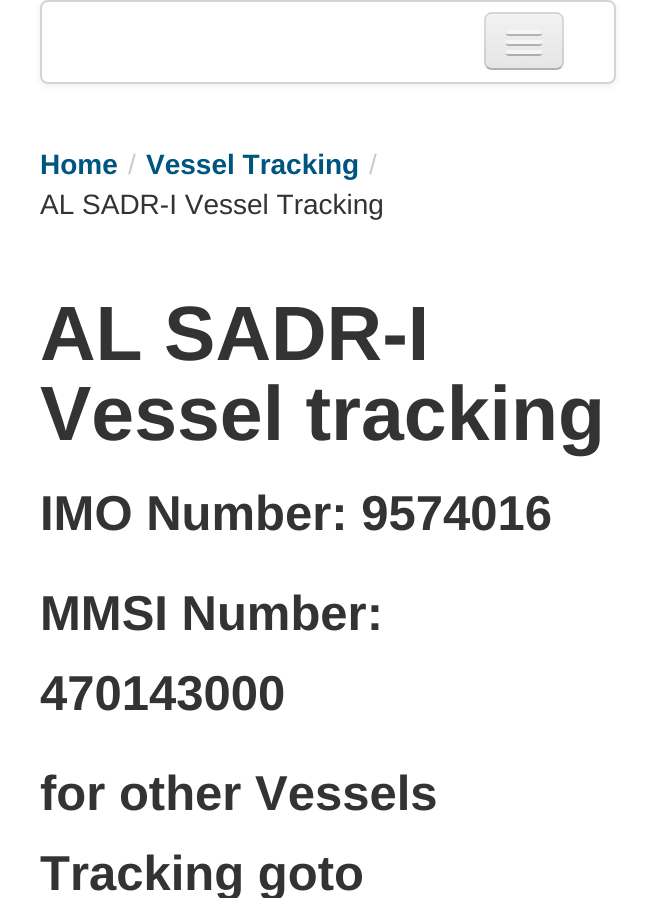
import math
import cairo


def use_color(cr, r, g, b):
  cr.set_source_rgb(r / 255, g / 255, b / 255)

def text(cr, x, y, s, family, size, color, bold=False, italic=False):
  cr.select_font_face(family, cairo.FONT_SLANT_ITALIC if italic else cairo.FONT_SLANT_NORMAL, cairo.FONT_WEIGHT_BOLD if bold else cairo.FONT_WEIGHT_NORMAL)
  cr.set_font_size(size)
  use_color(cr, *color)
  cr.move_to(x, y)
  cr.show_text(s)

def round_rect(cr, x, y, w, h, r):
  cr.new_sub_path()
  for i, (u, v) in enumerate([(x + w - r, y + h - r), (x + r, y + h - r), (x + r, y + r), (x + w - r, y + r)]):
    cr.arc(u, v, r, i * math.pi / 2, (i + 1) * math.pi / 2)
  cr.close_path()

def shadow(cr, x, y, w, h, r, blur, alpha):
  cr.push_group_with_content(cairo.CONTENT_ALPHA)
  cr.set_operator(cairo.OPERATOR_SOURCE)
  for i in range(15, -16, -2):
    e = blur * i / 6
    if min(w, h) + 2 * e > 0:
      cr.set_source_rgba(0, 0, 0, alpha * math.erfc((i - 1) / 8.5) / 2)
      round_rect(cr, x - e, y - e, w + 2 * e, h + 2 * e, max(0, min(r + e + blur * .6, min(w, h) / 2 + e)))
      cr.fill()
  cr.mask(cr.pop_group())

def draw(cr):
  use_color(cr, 255, 255, 255)
  cr.paint()
  cr.save()
  cr.set_fill_rule(cairo.FILL_RULE_EVEN_ODD)
  cr.new_path()
  cr.move_to(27, 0)
  cr.line_to(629, 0)
  cr.line_to(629, 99)
  cr.line_to(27, 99)
  cr.close_path()
  cr.move_to(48, 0)
  cr.line_to(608, 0)
  cr.curve_to(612.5, 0, 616, 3.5, 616, 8)
  cr.line_to(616, 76)
  cr.curve_to(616, 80.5, 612.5, 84, 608, 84)
  cr.line_to(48, 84)
  cr.curve_to(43.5, 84, 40, 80.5, 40, 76)
  cr.line_to(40, 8)
  cr.curve_to(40, 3.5, 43.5, 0, 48, 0)
  cr.close_path()
  cr.clip()
  use_color(cr, 0, 0, 0)
  shadow(cr, 40, 2, 576, 84, 8, 4, 0.07)
  cr.restore()
  round_rect(cr, 41, 1, 574, 82, 7)
  use_color(cr, 212, 212, 212)
  cr.stroke()
  use_color(cr, 237, 237, 237)
  round_rect(cr, 484, 12, 80, 58, 8)
  cr.fill()
  cr.save()
  round_rect(cr, 484, 12, 80, 58, 8)
  cr.clip()
  gradient = cairo.LinearGradient(524, 14, 524, 68)
  gradient.add_color_stop_rgba(0, 0.949, 0.949, 0.949, 1)
  gradient.add_color_stop_rgba(1, 0.898, 0.898, 0.898, 1)
  cr.set_source(gradient)
  cr.rectangle(484, 14, 80, 54)
  cr.fill()
  cr.restore()
  cr.new_path()
  cr.move_to(561, 67)
  cr.curve_to(559.5, 68.5, 558, 69, 556, 69)
  cr.line_to(492, 69)
  cr.curve_to(490, 69, 488.5, 68.5, 487, 67)
  cr.set_source_rgba(0, 0, 0, 0.25)
  cr.stroke()
  cr.new_path()
  cr.move_to(487, 67)
  cr.curve_to(485.5, 65.5, 485, 64, 485, 62)
  cr.line_to(485, 20)
  cr.curve_to(485, 18, 485.5, 16.5, 487, 15)
  cr.curve_to(488.5, 13.5, 490, 13, 492, 13)
  cr.line_to(556, 13)
  cr.curve_to(558, 13, 559.5, 13.5, 561, 15)
  cr.curve_to(562.5, 16.5, 563, 18, 563, 20)
  cr.line_to(563, 62)
  cr.curve_to(563, 64, 562.5, 65.5, 561, 67)
  cr.set_source_rgba(0, 0, 0, 0.1)
  cr.stroke()
  use_color(cr, 178, 178, 178)
  cr.new_path()
  cr.move_to(506.5, 33)
  cr.curve_to(504, 37, 513, 36, 513.5, 36)
  cr.line_to(534.5, 36)
  cr.curve_to(535, 36, 544, 37, 541.5, 33)
  cr.curve_to(541.5, 33.5, 540.5, 34, 540, 34)
  cr.line_to(508, 34)
  cr.curve_to(507.5, 34, 506.5, 33.5, 506.5, 33)
  cr.close_path()
  cr.fill()
  use_color(cr, 245, 245, 245)
  round_rect(cr, 506, 30, 36, 4, 2)
  cr.fill()
  use_color(cr, 176, 176, 176)
  cr.new_path()
  cr.move_to(506.5, 43)
  cr.curve_to(504, 47, 513, 46, 513.5, 46)
  cr.line_to(534.5, 46)
  cr.curve_to(535, 46, 544, 47, 541.5, 43)
  cr.curve_to(541.5, 43.5, 540.5, 44, 540, 44)
  cr.line_to(508, 44)
  cr.curve_to(507.5, 44, 506.5, 43.5, 506.5, 43)
  cr.close_path()
  cr.fill()
  use_color(cr, 245, 245, 245)
  round_rect(cr, 506, 40, 36, 4, 2)
  cr.fill()
  use_color(cr, 174, 174, 174)
  cr.new_path()
  cr.move_to(506.5, 53)
  cr.curve_to(504, 57, 513, 56, 513.5, 56)
  cr.line_to(534.5, 56)
  cr.curve_to(535, 56, 544, 57, 541.5, 53)
  cr.curve_to(541.5, 53.5, 540.5, 54, 540, 54)
  cr.line_to(508, 54)
  cr.curve_to(507.5, 54, 506.5, 53.5, 506.5, 53)
  cr.close_path()
  cr.fill()
  use_color(cr, 245, 245, 245)
  round_rect(cr, 506, 50, 36, 4, 2)
  cr.fill()
  text(cr, 40, 174, "Home", "Liberation Sans", 28, (0, 85, 128), bold=True)
  text(cr, 128, 174, "/", "Liberation Sans", 28, (204, 204, 204))
  text(cr, 146, 174, "Vessel Tracking", "Liberation Sans", 28, (0, 85, 128), bold=True)
  text(cr, 369, 174, "/", "Liberation Sans", 28, (204, 204, 204))
  text(cr, 40, 214, "AL SADR-I Vessel Tracking", "Liberation Sans", 28, (51, 51, 51))
  text(cr, 40, 360, "AL SADR-I", "Liberation Sans", 77, (51, 51, 51), bold=True)
  text(cr, 40, 440, "Vessel tracking", "Liberation Sans", 77, (51, 51, 51), bold=True)
  text(cr, 40, 530, "IMO Number: 9574016", "Liberation Sans", 49, (51, 51, 51), bold=True)
  text(cr, 40, 630, "MMSI Number:", "Liberation Sans", 49, (51, 51, 51), bold=True)
  text(cr, 40, 710, "470143000", "Liberation Sans", 49, (51, 51, 51), bold=True)
  text(cr, 40, 810, "for other Vessels", "Liberation Sans", 49, (51, 51, 51), bold=True)
  text(cr, 40, 890, "Tracking goto", "Liberation Sans", 49, (51, 51, 51), bold=True)


surface = cairo.ImageSurface(cairo.FORMAT_RGB24, 656, 898)
cr = cairo.Context(surface)
options = cairo.FontOptions()
options.set_hint_metrics(cairo.HINT_METRICS_OFF)
options.set_hint_style(cairo.HINT_STYLE_NONE)
cr.set_font_options(options)
cr.set_miter_limit(4)
draw(cr)
surface.write_to_png("out.png")
